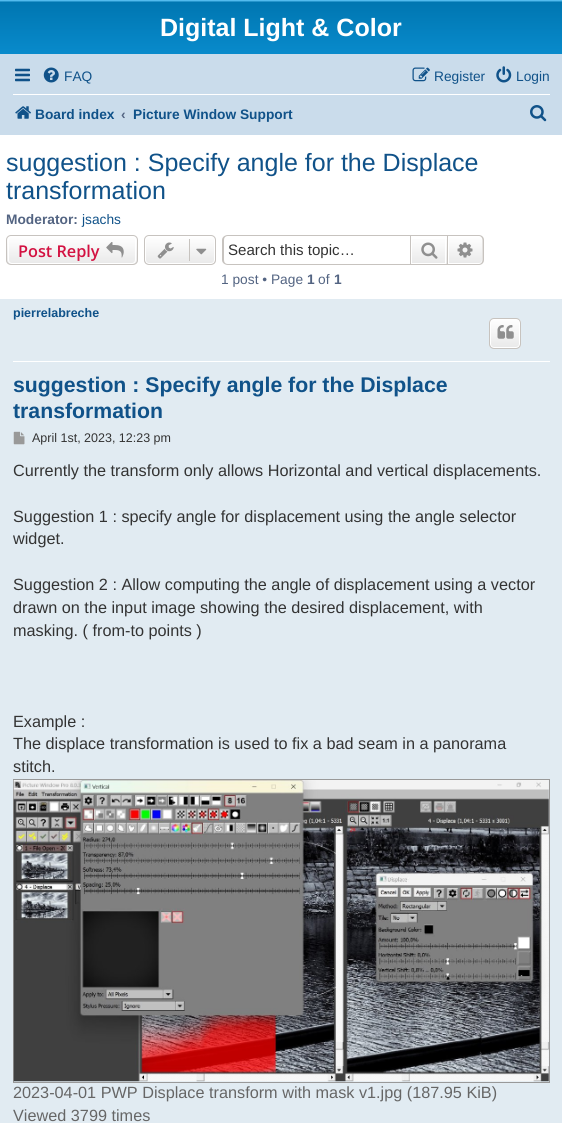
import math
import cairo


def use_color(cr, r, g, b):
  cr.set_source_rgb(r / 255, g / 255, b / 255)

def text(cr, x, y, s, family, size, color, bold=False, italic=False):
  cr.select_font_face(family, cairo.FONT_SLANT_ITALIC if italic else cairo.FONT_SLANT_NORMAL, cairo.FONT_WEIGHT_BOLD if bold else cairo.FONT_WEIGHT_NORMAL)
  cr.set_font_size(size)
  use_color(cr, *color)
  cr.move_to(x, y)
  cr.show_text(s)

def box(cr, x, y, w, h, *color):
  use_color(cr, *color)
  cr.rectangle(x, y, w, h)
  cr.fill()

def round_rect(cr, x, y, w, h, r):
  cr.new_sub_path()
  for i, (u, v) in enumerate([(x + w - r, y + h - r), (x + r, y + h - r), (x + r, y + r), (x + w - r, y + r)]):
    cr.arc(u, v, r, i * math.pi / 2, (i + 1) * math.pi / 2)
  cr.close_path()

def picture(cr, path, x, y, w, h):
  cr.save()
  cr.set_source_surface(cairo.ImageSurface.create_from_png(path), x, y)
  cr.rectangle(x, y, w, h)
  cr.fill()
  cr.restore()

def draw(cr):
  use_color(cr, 255, 255, 255)
  cr.paint()
  gradient = cairo.LinearGradient(281, 0, 281, 115)
  gradient.add_color_stop_rgba(0, 0.416, 0.808, 1, 1)
  gradient.add_color_stop_rgba(0.02, 0, 0.463, 0.694, 1)
  gradient.add_color_stop_rgba(1, 0.071, 0.639, 0.922, 1)
  cr.set_source(gradient)
  cr.rectangle(0, 0, 562, 54)
  cr.fill()
  box(cr, 0, 54, 562, 81, 202, 220, 235)
  picture(cr, "img_01.png", 15, 68, 15, 14)
  picture(cr, "img_02.png", 43, 67, 16, 16)
  picture(cr, "img_03.png", 412, 67, 18, 15)
  picture(cr, "img_04.png", 496, 66, 16, 17)
  box(cr, 13, 94, 537, 1, 255, 255, 255)
  picture(cr, "img_05.png", 15, 106, 16, 13)
  picture(cr, "img_06.png", 530, 105, 17, 17)
  cr.save()
  round_rect(cr, 6, 235, 132, 30, 5)
  cr.clip()
  gradient = cairo.LinearGradient(72, 236, 72, 264)
  gradient.add_color_stop_rgba(0, 1, 1, 1, 1)
  gradient.add_color_stop_rgba(1, 0.914, 0.914, 0.914, 1)
  cr.set_source(gradient)
  cr.rectangle(6, 236, 132, 28)
  cr.fill()
  cr.restore()
  round_rect(cr, 8.5, 236.5, 127, 27, 3.5)
  cr.set_line_width(1)
  cr.stroke()
  round_rect(cr, 6.5, 235.5, 131, 29, 4.5)
  use_color(cr, 199, 195, 191)
  cr.stroke()
  picture(cr, "img_07.png", 106, 242, 18, 16)
  cr.save()
  round_rect(cr, 144, 235, 72, 30, 5)
  cr.clip()
  gradient = cairo.LinearGradient(180, 236, 180, 264)
  gradient.add_color_stop_rgba(0, 1, 1, 1, 1)
  gradient.add_color_stop_rgba(1, 0.914, 0.914, 0.914, 1)
  cr.set_source(gradient)
  cr.rectangle(144, 236, 72, 28)
  cr.fill()
  cr.restore()
  round_rect(cr, 145.5, 236.5, 69, 27, 3.5)
  use_color(cr, 255, 255, 255)
  cr.stroke()
  round_rect(cr, 144.5, 235.5, 71, 29, 4.5)
  use_color(cr, 199, 195, 191)
  cr.stroke()
  picture(cr, "img_08.png", 157, 242, 17, 17)
  box(cr, 189, 239, 1, 22, 199, 195, 191)
  picture(cr, "img_09.png", 196, 248, 11, 7)
  cr.set_fill_rule(cairo.FILL_RULE_EVEN_ODD)
  cr.new_path()
  cr.move_to(228, 235)
  cr.line_to(410, 235)
  cr.line_to(410, 265)
  cr.line_to(228, 265)
  cr.curve_to(225, 265, 222, 263, 222, 260)
  cr.line_to(222, 240)
  cr.curve_to(222, 237, 225, 235, 228, 235)
  cr.close_path()
  cr.move_to(228, 236)
  cr.line_to(410, 236)
  cr.line_to(410, 264)
  cr.line_to(228, 264)
  cr.curve_to(225, 264, 224, 262, 224, 260)
  cr.line_to(224, 240)
  cr.curve_to(224, 238, 225, 236, 228, 236)
  cr.close_path()
  cr.fill()
  gradient = cairo.LinearGradient(429, 236, 429, 264)
  gradient.add_color_stop_rgba(0, 1, 1, 1, 1)
  gradient.add_color_stop_rgba(1, 0.914, 0.914, 0.914, 1)
  cr.set_source(gradient)
  cr.rectangle(412, 239, 35, 25)
  cr.fill()
  cr.rectangle(411.5, 236.5, 34, 27)
  use_color(cr, 255, 255, 255)
  cr.stroke()
  cr.rectangle(410.5, 235.5, 37, 29)
  use_color(cr, 199, 195, 191)
  cr.stroke()
  picture(cr, "img_10.png", 421, 242, 17, 17)
  gradient = cairo.LinearGradient(465, 236, 465, 264)
  gradient.add_color_stop_rgba(0, 1, 1, 1, 1)
  gradient.add_color_stop_rgba(1, 0.914, 0.914, 0.914, 1)
  cr.set_source(gradient)
  cr.new_path()
  cr.move_to(448.5, 236.5)
  cr.line_to(479, 236.5)
  cr.curve_to(481, 236.5, 482.5, 238, 482.5, 240)
  cr.line_to(482.5, 260)
  cr.curve_to(482.5, 262, 481, 263.5, 479, 263.5)
  cr.line_to(448.5, 263.5)
  cr.close_path()
  cr.fill_preserve()
  use_color(cr, 255, 255, 255)
  cr.stroke()
  use_color(cr, 199, 195, 191)
  cr.new_path()
  cr.move_to(447.5, 235)
  cr.line_to(479, 235)
  cr.curve_to(481.5, 235, 484, 237, 484, 240)
  cr.line_to(484, 260)
  cr.curve_to(484, 263, 481.5, 265, 479, 265)
  cr.line_to(447.5, 265)
  cr.close_path()
  cr.move_to(447.5, 236)
  cr.line_to(479, 236)
  cr.curve_to(481, 236, 482.5, 238, 482.5, 240)
  cr.line_to(482.5, 260)
  cr.curve_to(482.5, 262, 481, 264, 479, 264)
  cr.line_to(447.5, 264)
  cr.close_path()
  cr.fill()
  picture(cr, "img_11.png", 457, 242, 16, 16)
  box(cr, 0, 299, 562, 824, 225, 235, 242)
  box(cr, 13, 361, 537, 1, 255, 255, 255)
  cr.save()
  cr.set_fill_rule(cairo.FILL_RULE_WINDING)
  round_rect(cr, 489, 318, 32, 31, 5)
  cr.clip()
  gradient = cairo.LinearGradient(505, 319, 505, 348)
  gradient.add_color_stop_rgba(0, 1, 1, 1, 1)
  gradient.add_color_stop_rgba(1, 0.914, 0.914, 0.914, 1)
  cr.set_source(gradient)
  cr.rectangle(489, 319, 32, 29)
  cr.fill()
  cr.restore()
  round_rect(cr, 490.5, 319.5, 29, 28, 3.5)
  cr.stroke()
  round_rect(cr, 489.5, 318.5, 31, 30, 4.5)
  use_color(cr, 199, 195, 191)
  cr.stroke()
  picture(cr, "img_12.png", 497, 325, 17, 14)
  picture(cr, "img_13.png", 13, 431, 12, 14)
  cr.rectangle(13.5, 779.5, 536, 303)
  use_color(cr, 153, 153, 153)
  cr.stroke()
  picture(cr, "img_14.png", 13, 780, 536, 302)
  text(cr, 160, 36, "Digital Light & Color", "Liberation Sans", 25, (255, 255, 255), bold=True)
  text(cr, 64, 81, "FAQ", "Liberation Sans", 13.75, (16, 82, 137))
  text(cr, 434, 81, "Register", "Liberation Sans", 13.75, (16, 82, 137))
  text(cr, 516, 81, "Login", "Liberation Sans", 13.75, (16, 82, 137))
  text(cr, 35, 119, "Board index", "Liberation Sans", 13.75, (16, 82, 137), bold=True)
  text(cr, 121, 119, "‹", "Liberation Sans", 13.75, (83, 100, 130), bold=True)
  text(cr, 133, 119, "Picture Window Support", "Liberation Sans", 13.75, (16, 82, 137), bold=True)
  text(cr, 6, 171, "suggestion : Specify angle for the Displace", "Liberation Sans", 25, (16, 82, 137))
  text(cr, 6, 199, "transformation", "Liberation Sans", 25, (16, 82, 137))
  text(cr, 6, 224, "Moderator:", "Liberation Sans", 13.75, (83, 100, 130), bold=True)
  text(cr, 82, 224, "jsachs", "Liberation Sans", 13.75, (16, 82, 137))
  text(cr, 18, 257, "Post Reply", "Open Sans SemiBold", 16.25, (211, 17, 65))
  text(cr, 228, 255, "Search this topic…", "Liberation Sans", 15.1, (51, 51, 51))
  text(cr, 221, 284, "1 post • Page", "Liberation Sans", 13.75, (83, 100, 130))
  text(cr, 307, 284, "1", "Liberation Sans", 13.75, (83, 100, 130), bold=True)
  text(cr, 318, 284, "of", "Liberation Sans", 13.75, (83, 100, 130))
  text(cr, 334, 284, "1", "Liberation Sans", 13.75, (83, 100, 130), bold=True)
  text(cr, 13, 317, "pierrelabreche", "Liberation Sans", 12.5, (16, 82, 137), bold=True)
  text(cr, 13, 392, "suggestion : Specify angle for the Displace", "Liberation Sans", 21.25, (16, 82, 137), bold=True)
  text(cr, 13, 418, "transformation", "Liberation Sans", 21.25, (16, 82, 137), bold=True)
  text(cr, 32, 442, "April 1st, 2023, 12:23 pm", "Liberation Sans", 12.5, (51, 51, 51))
  text(cr, 13, 476, "Currently the transform only allows Horizontal and vertical displacements.", "Liberation Sans", 16.25, (51, 51, 51))
  text(cr, 13, 522, "Suggestion 1 : specify angle for displacement using the angle selector", "Liberation Sans", 16.25, (51, 51, 51))
  text(cr, 13, 544, "widget.", "Liberation Sans", 16.25, (51, 51, 51))
  text(cr, 13, 590, "Suggestion 2 : Allow computing the angle of displacement using a vector", "Liberation Sans", 16.25, (51, 51, 51))
  text(cr, 13, 613, "drawn on the input image showing the desired displacement, with", "Liberation Sans", 16.25, (51, 51, 51))
  text(cr, 13, 636, "masking. ( from-to points )", "Liberation Sans", 16.25, (51, 51, 51))
  text(cr, 13, 727, "Example :", "Liberation Sans", 16.25, (51, 51, 51))
  text(cr, 13, 749, "The displace transformation is used to fix a bad seam in a panorama", "Liberation Sans", 16.25, (51, 51, 51))
  text(cr, 13, 772, "stitch.", "Liberation Sans", 16.25, (51, 51, 51))
  text(cr, 13, 1098, "2023-04-01 PWP Displace transform with mask v1.jpg (187.95 KiB)", "Liberation Sans", 16.25, (102, 102, 102))
  text(cr, 13, 1121, "Viewed 3799 times", "Liberation Sans", 16.25, (102, 102, 102))


surface = cairo.ImageSurface(cairo.FORMAT_RGB24, 562, 1123)
cr = cairo.Context(surface)
options = cairo.FontOptions()
options.set_hint_metrics(cairo.HINT_METRICS_OFF)
options.set_hint_style(cairo.HINT_STYLE_NONE)
cr.set_font_options(options)
cr.set_miter_limit(4)
draw(cr)
surface.write_to_png("out.png")
